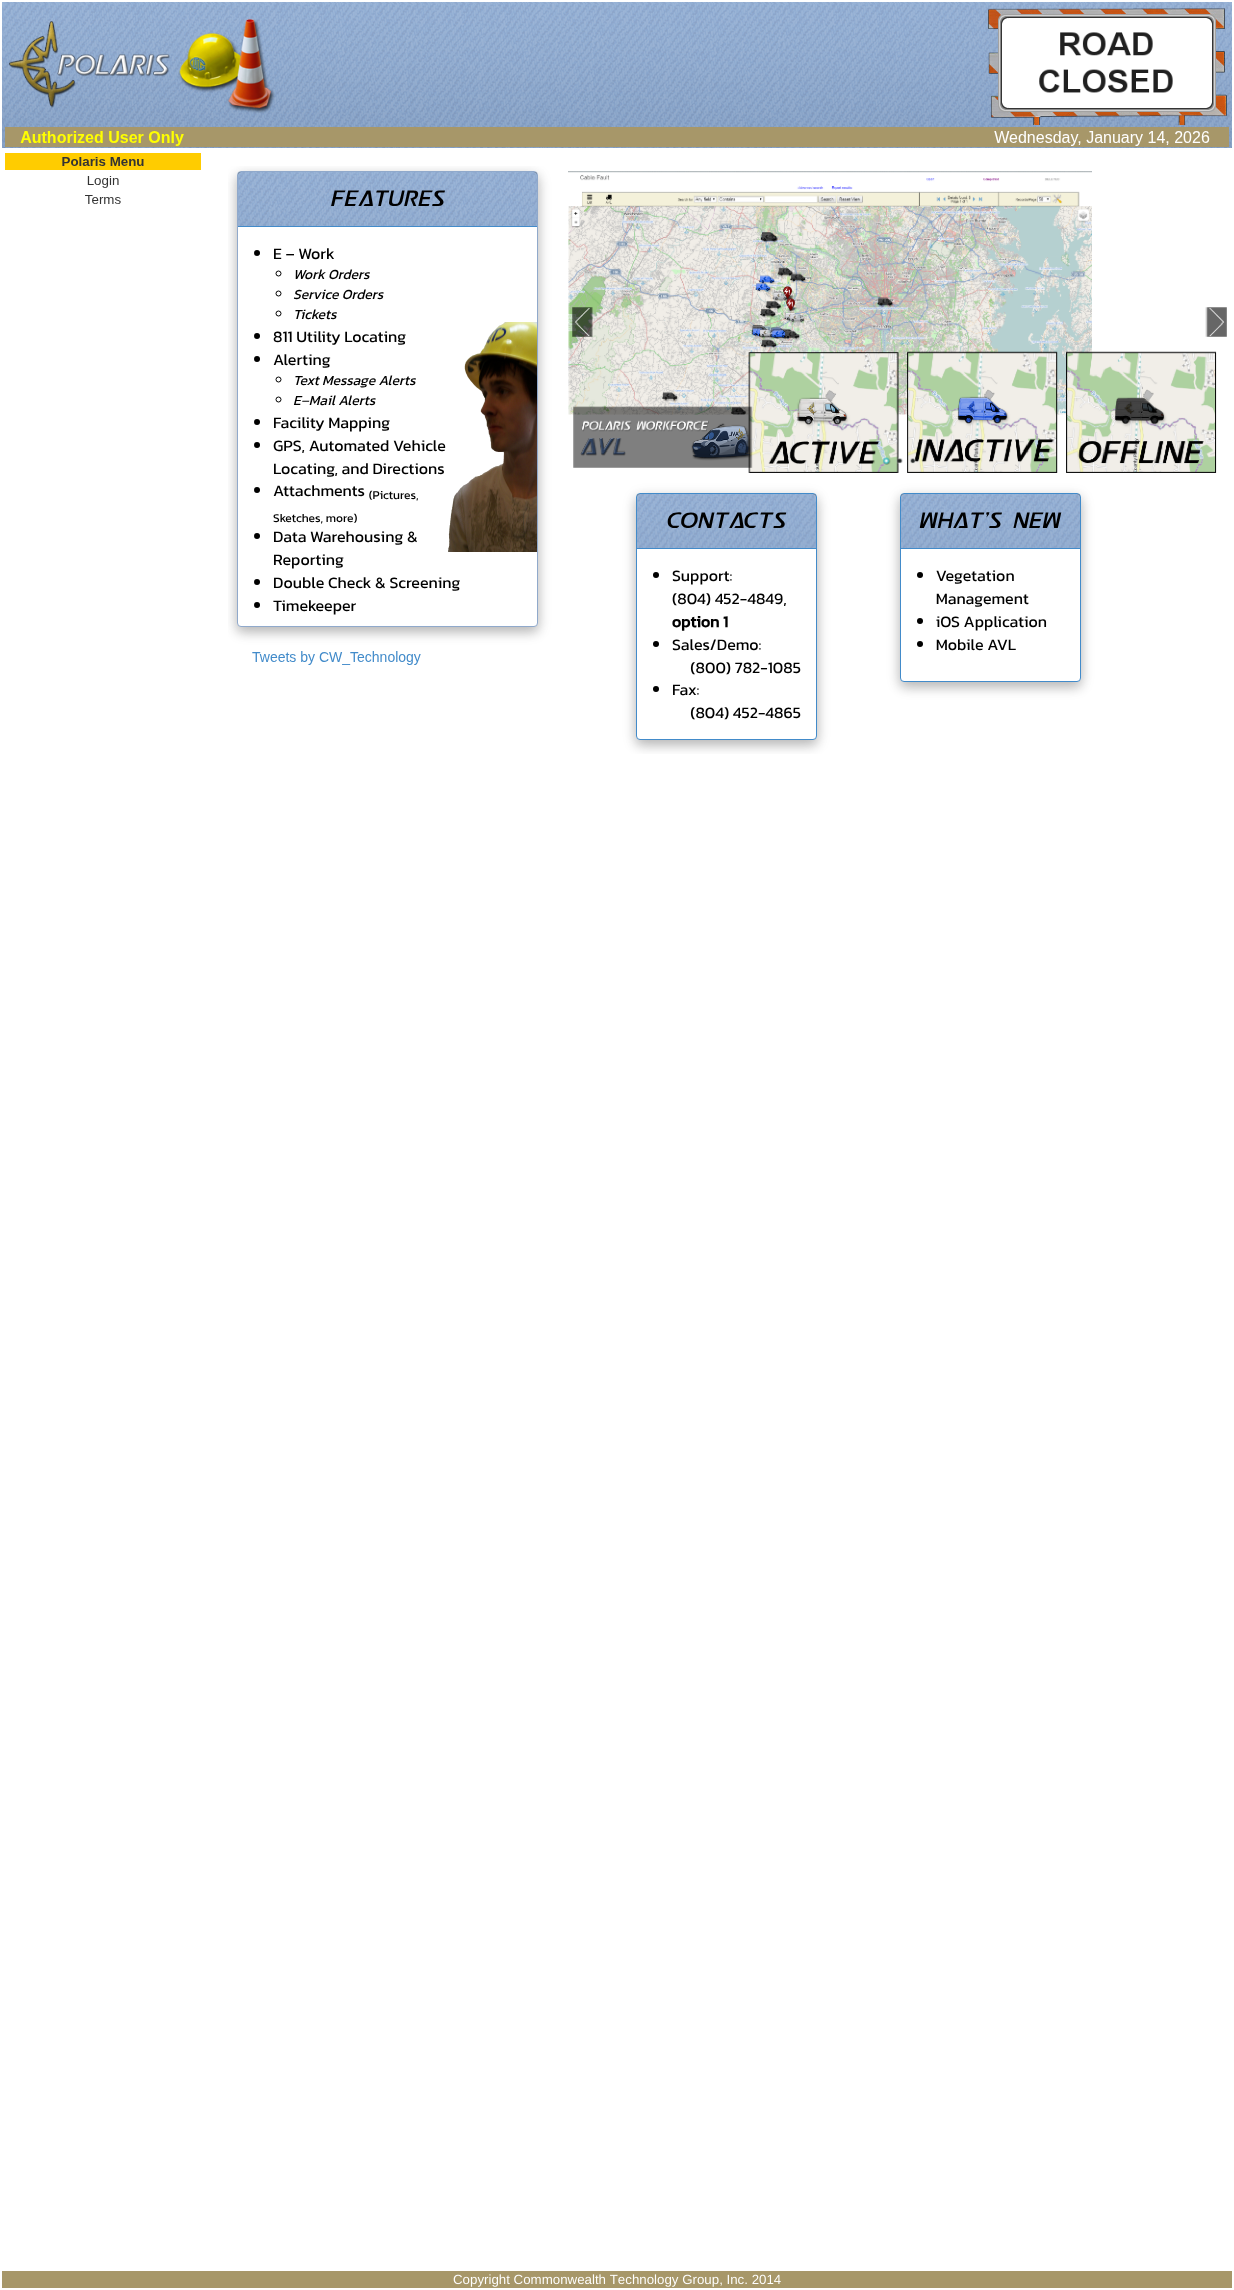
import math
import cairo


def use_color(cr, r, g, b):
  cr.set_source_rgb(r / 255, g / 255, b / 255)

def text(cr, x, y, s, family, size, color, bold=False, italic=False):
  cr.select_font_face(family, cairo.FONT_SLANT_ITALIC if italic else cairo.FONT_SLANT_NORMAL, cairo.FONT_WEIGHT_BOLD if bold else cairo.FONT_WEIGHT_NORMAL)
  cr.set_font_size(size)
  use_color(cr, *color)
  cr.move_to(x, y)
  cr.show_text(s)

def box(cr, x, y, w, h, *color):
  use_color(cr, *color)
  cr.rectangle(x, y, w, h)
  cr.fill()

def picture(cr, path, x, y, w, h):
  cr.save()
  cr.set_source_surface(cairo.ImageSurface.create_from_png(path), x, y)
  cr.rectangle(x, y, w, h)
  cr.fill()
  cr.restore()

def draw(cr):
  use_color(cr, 255, 255, 255)
  cr.paint()
  picture(cr, "img_01.png", 2, 2, 1230, 146)
  picture(cr, "img_02.png", 3, 3, 1228, 144)
  picture(cr, "img_03.png", 5, 153, 196, 51)
  picture(cr, "img_04.png", 228, 166, 999, 588)
  box(cr, 2, 2271, 1230, 17, 167, 151, 105)
  text(cr, 453, 2284, "Copyright Commonwealth Technology Group, Inc. 2014", "Liberation Sans", 13.3, (255, 255, 255))


surface = cairo.ImageSurface(cairo.FORMAT_RGB24, 1234, 2290)
cr = cairo.Context(surface)
options = cairo.FontOptions()
options.set_hint_metrics(cairo.HINT_METRICS_OFF)
options.set_hint_style(cairo.HINT_STYLE_NONE)
cr.set_font_options(options)
cr.set_miter_limit(4)
draw(cr)
surface.write_to_png("out.png")
